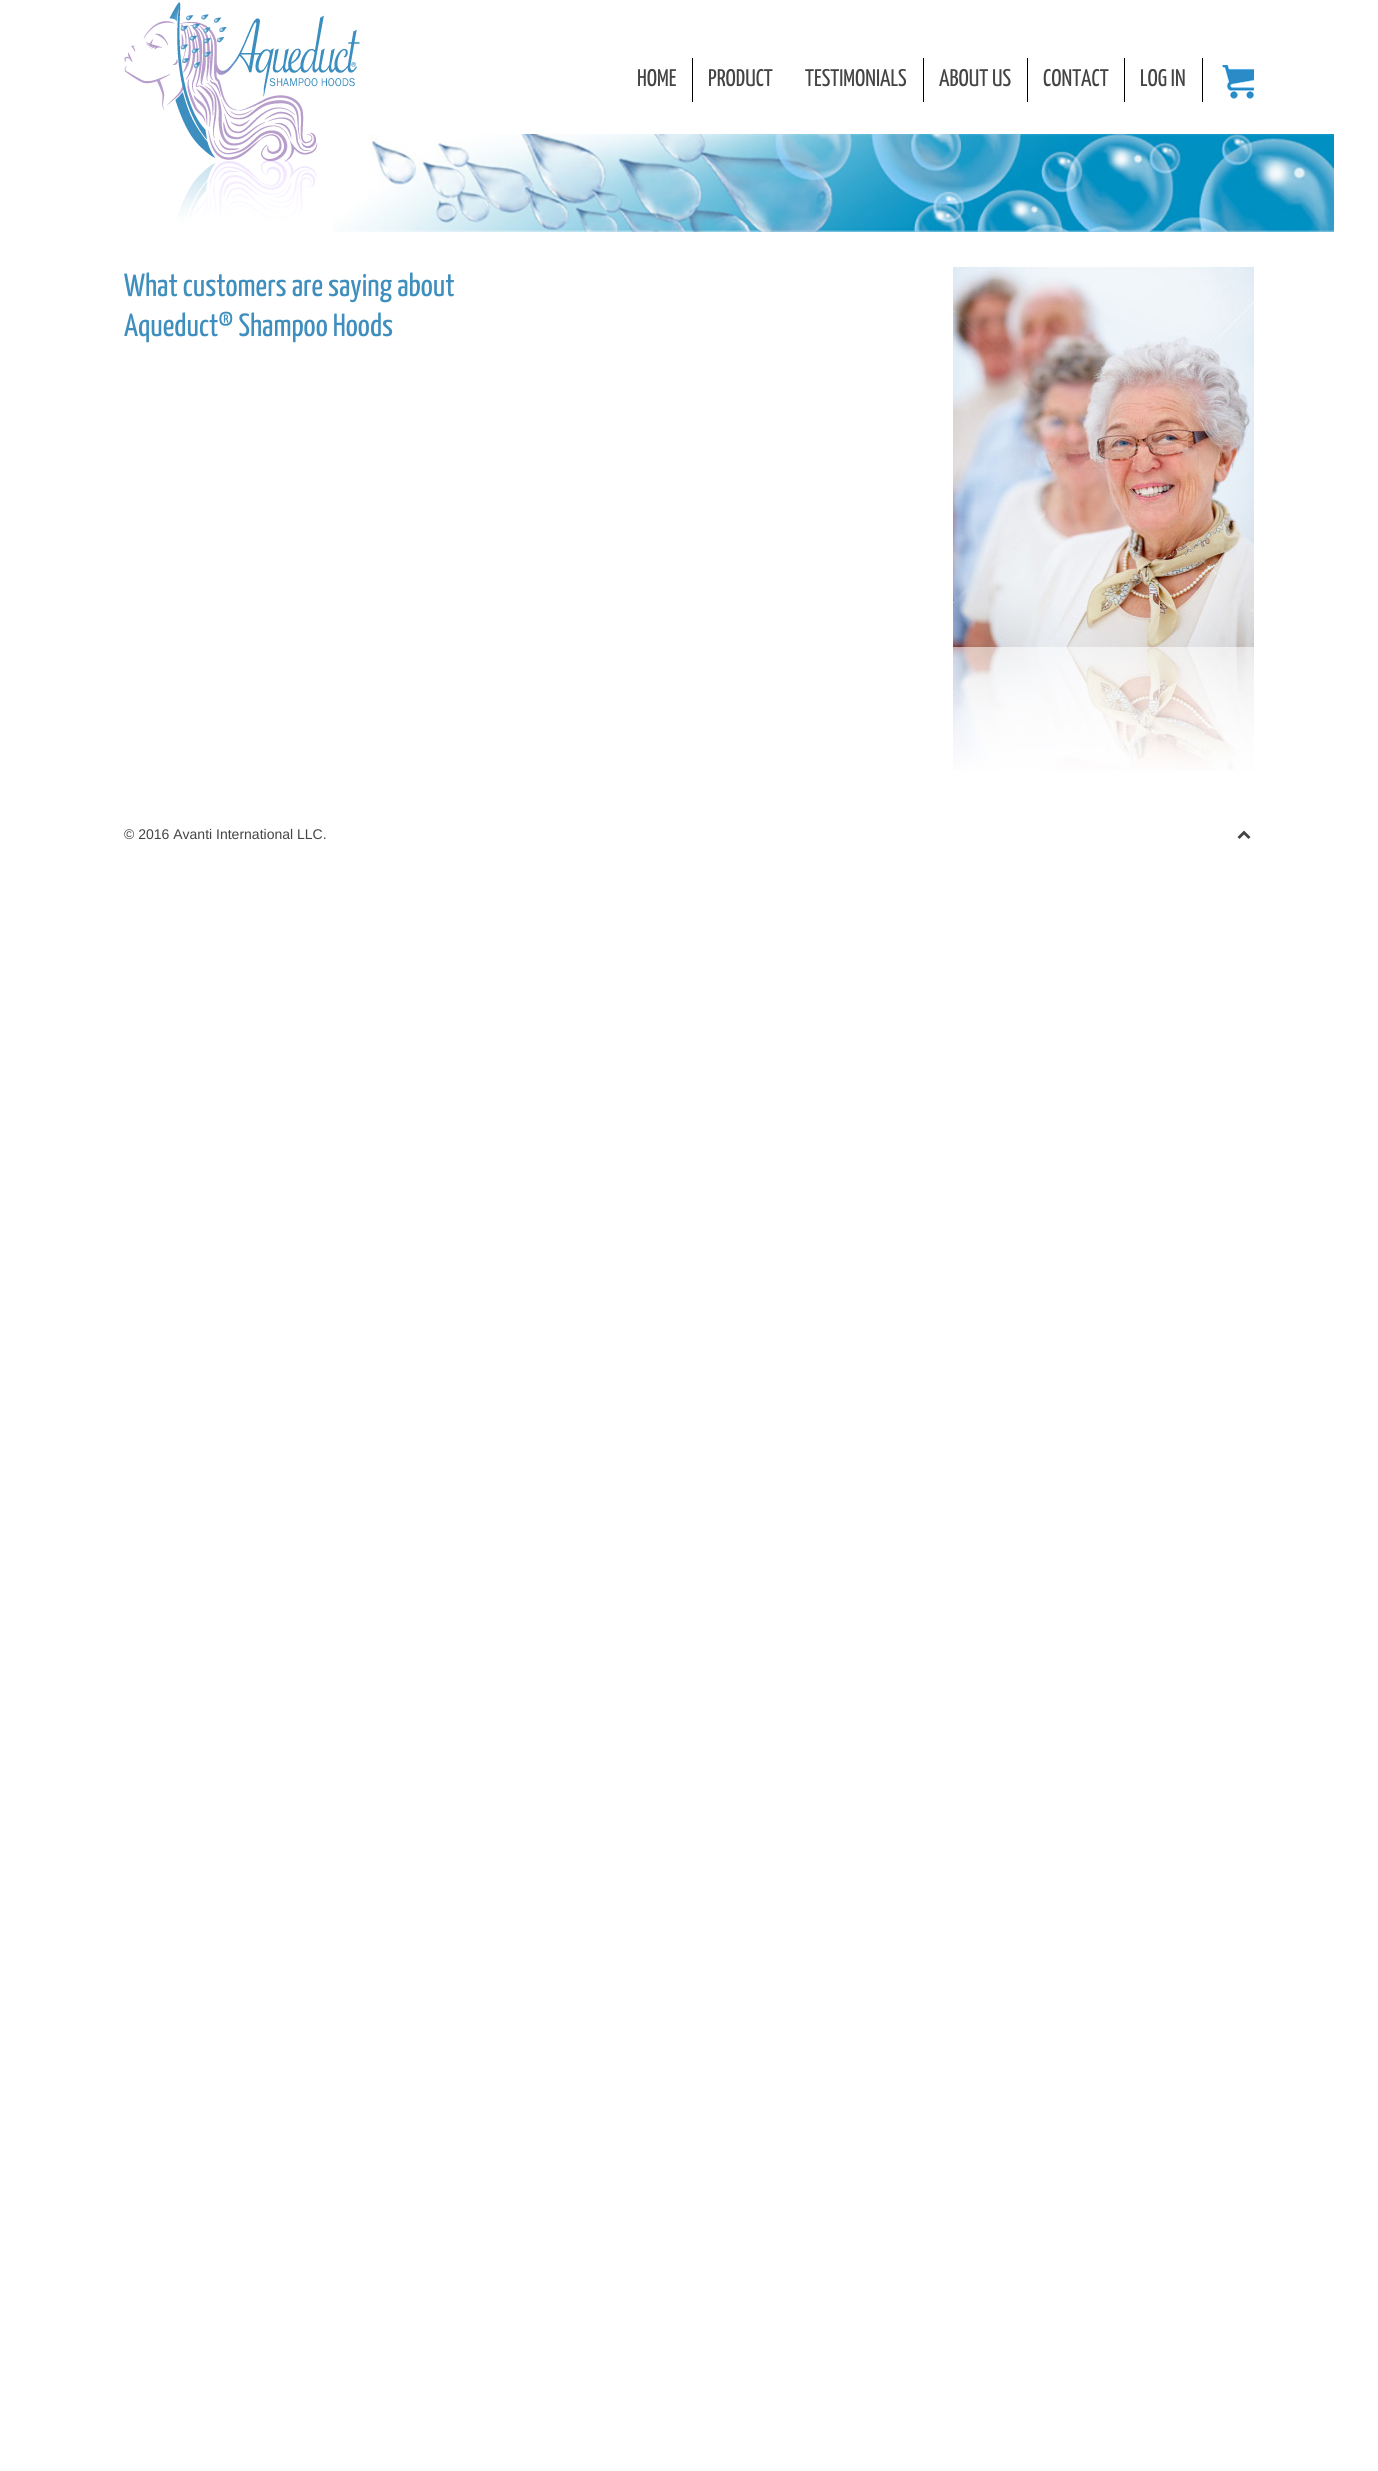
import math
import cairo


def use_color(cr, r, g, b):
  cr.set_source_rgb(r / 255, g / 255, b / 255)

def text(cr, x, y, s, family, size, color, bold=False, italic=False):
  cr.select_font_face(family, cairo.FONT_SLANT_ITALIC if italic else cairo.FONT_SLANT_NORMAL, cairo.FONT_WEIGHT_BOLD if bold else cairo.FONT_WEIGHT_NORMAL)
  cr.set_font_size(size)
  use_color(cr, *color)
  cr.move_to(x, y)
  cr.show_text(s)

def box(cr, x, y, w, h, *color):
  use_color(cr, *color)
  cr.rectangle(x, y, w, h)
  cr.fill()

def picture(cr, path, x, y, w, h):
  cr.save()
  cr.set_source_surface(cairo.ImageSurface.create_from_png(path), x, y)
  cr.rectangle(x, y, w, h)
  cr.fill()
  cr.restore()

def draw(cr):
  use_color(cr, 255, 255, 255)
  cr.paint()
  box(cr, 692, 58, 1, 44, 0, 0, 0)
  box(cr, 923, 58, 1, 44, 0, 0, 0)
  box(cr, 1027, 58, 1, 44, 0, 0, 0)
  box(cr, 1124, 58, 1, 44, 0, 0, 0)
  box(cr, 1202, 58, 1, 44, 0, 0, 0)
  picture(cr, "img_02.png", 1222, 65, 32, 34)
  picture(cr, "img_03.png", 333, 134, 1001, 98)
  picture(cr, "img_04.png", 953, 267, 301, 504)
  picture(cr, "img_05.png", 1237, 830, 14, 9)
  text(cr, 637, 86, "HOME", "Yanone Kaffeesatz ExtraLight", 24, (68, 68, 68))
  text(cr, 708, 86, "PRODUCT", "Yanone Kaffeesatz ExtraLight", 24, (68, 68, 68))
  text(cr, 805, 86, "TESTIMONIALS", "Yanone Kaffeesatz ExtraLight", 24, (68, 68, 68))
  text(cr, 939, 86, "ABOUT US", "Yanone Kaffeesatz ExtraLight", 24, (68, 68, 68))
  text(cr, 1043, 86, "CONTACT", "Yanone Kaffeesatz ExtraLight", 24, (68, 68, 68))
  text(cr, 1140, 86, "LOG IN", "Yanone Kaffeesatz ExtraLight", 24, (68, 68, 68))
  text(cr, 124, 296, "What customers are saying about", "Yanone Kaffeesatz ExtraLight", 32, (62, 142, 190))
  text(cr, 124, 336, "Aqueduct® Shampoo Hoods", "Yanone Kaffeesatz ExtraLight", 32, (62, 142, 190))
  picture(cr, "img_01.png", 124, 2, 236, 315)
  text(cr, 124, 839, "© 2016 Avanti International LLC.", "Liberation Sans", 14, (68, 68, 68))


surface = cairo.ImageSurface(cairo.FORMAT_RGB24, 1378, 2471)
cr = cairo.Context(surface)
options = cairo.FontOptions()
options.set_hint_metrics(cairo.HINT_METRICS_OFF)
options.set_hint_style(cairo.HINT_STYLE_NONE)
cr.set_font_options(options)
cr.set_miter_limit(4)
draw(cr)
surface.write_to_png("out.png")
